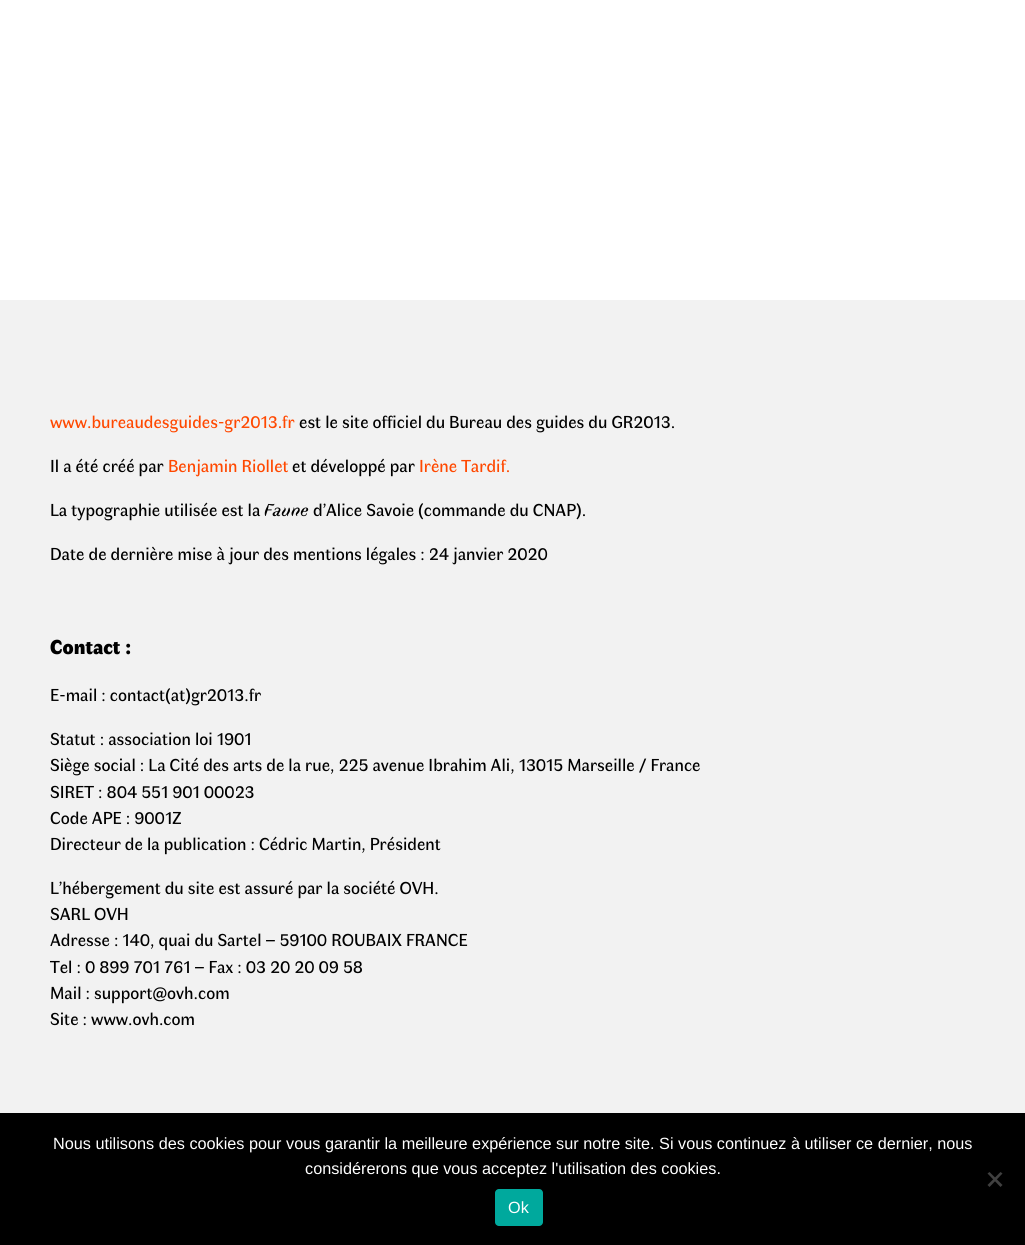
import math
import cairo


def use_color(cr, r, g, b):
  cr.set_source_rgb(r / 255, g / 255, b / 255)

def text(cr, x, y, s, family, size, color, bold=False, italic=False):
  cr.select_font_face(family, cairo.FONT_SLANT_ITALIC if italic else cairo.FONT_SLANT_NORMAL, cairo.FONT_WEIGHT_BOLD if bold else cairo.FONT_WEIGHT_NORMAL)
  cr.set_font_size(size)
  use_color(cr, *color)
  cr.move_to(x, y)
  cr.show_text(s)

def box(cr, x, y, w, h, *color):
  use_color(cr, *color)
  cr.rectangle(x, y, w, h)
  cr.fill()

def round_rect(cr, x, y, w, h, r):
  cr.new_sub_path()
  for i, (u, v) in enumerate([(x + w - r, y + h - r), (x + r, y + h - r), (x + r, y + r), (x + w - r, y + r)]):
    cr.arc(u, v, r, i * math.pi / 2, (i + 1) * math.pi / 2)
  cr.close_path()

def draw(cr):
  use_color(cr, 255, 255, 255)
  cr.paint()
  box(cr, 0, 300, 1025, 813, 242, 242, 242)
  box(cr, 0, 1113, 1025, 132, 0, 0, 0)
  use_color(cr, 64, 64, 64)
  cr.new_path()
  cr.move_to(1000.5, 1172)
  cr.line_to(1002.5, 1173.5)
  cr.line_to(989.5, 1187)
  cr.line_to(987.5, 1185)
  cr.close_path()
  cr.fill()
  cr.new_path()
  cr.move_to(987.5, 1173.5)
  cr.line_to(989.5, 1172)
  cr.line_to(1002.5, 1185)
  cr.line_to(1000.5, 1187)
  cr.close_path()
  cr.fill()
  use_color(cr, 0, 169, 157)
  round_rect(cr, 495, 1189, 48, 37, 4)
  cr.fill()
  text(cr, 50, 428, "www.bureaudesguides-gr2013.fr", "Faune", 17.5, (255, 72, 0))
  text(cr, 299, 428, "est le site officiel du Bureau des guides du GR2013.", "Faune", 17.5, (0, 0, 0))
  text(cr, 50, 472, "Il a été créé par", "Faune", 17.5, (0, 0, 0))
  text(cr, 168, 472, "Benjamin Riollet", "Faune", 17.5, (255, 72, 0))
  text(cr, 292, 472, "et développé par", "Faune", 17.5, (0, 0, 0))
  text(cr, 419, 472, "Irène Tardif.", "Faune", 17.5, (255, 72, 0))
  text(cr, 50, 516, "La typographie utilisée est la", "Faune", 17.5, (0, 0, 0))
  text(cr, 264, 516, "Faune", "Faune", 17.5, (0, 0, 0), italic=True)
  text(cr, 313, 516, "d’Alice Savoie (commande du CNAP).", "Faune", 17.5, (0, 0, 0))
  text(cr, 50, 560, "Date de dernière mise à jour des mentions légales : 24 janvier 2020", "Faune", 17.5, (0, 0, 0))
  text(cr, 50, 654, "Contact :", "Faune Black", 20.5, (0, 0, 0))
  text(cr, 50, 701, "E-mail : contact(at)gr2013.fr", "Faune", 17.5, (0, 0, 0))
  text(cr, 50, 745, "Statut : association loi 1901", "Faune", 17.5, (0, 0, 0))
  text(cr, 50, 771, "Siège social : La Cité des arts de la rue, 225 avenue Ibrahim Ali, 13015 Marseille / France", "Faune", 17.5, (0, 0, 0))
  text(cr, 50, 798, "SIRET : 804 551 901 00023", "Faune", 17.5, (0, 0, 0))
  text(cr, 50, 824, "Code APE : 9001Z", "Faune", 17.5, (0, 0, 0))
  text(cr, 50, 850, "Directeur de la publication : Cédric Martin, Président", "Faune", 17.5, (0, 0, 0))
  text(cr, 50, 894, "L’hébergement du site est assuré par la société OVH.", "Faune", 17.5, (0, 0, 0))
  text(cr, 50, 920, "SARL OVH", "Faune", 17.5, (0, 0, 0))
  text(cr, 50, 946, "Adresse : 140, quai du Sartel – 59100 ROUBAIX FRANCE", "Faune", 17.5, (0, 0, 0))
  text(cr, 50, 973, "Tel : 0 899 701 761 – Fax : 03 20 20 09 58", "Faune", 17.5, (0, 0, 0))
  text(cr, 50, 999, "Mail : support@ovh.com", "Faune", 17.5, (0, 0, 0))
  text(cr, 50, 1025, "Site : www.ovh.com", "Faune", 17.5, (0, 0, 0))
  text(cr, 53, 1149, "Nous utilisons des cookies pour vous garantir la meilleure expérience sur notre site. Si vous continuez à utiliser ce dernier, nous", "Liberation Sans", 16.25, (255, 255, 255))
  text(cr, 305, 1174, "considérerons que vous acceptez l'utilisation des cookies.", "Liberation Sans", 16.25, (255, 255, 255))
  text(cr, 508, 1213, "Ok", "Liberation Sans", 16.25, (255, 255, 255))


surface = cairo.ImageSurface(cairo.FORMAT_RGB24, 1025, 1245)
cr = cairo.Context(surface)
options = cairo.FontOptions()
options.set_hint_metrics(cairo.HINT_METRICS_OFF)
options.set_hint_style(cairo.HINT_STYLE_NONE)
cr.set_font_options(options)
cr.set_miter_limit(4)
draw(cr)
surface.write_to_png("out.png")
